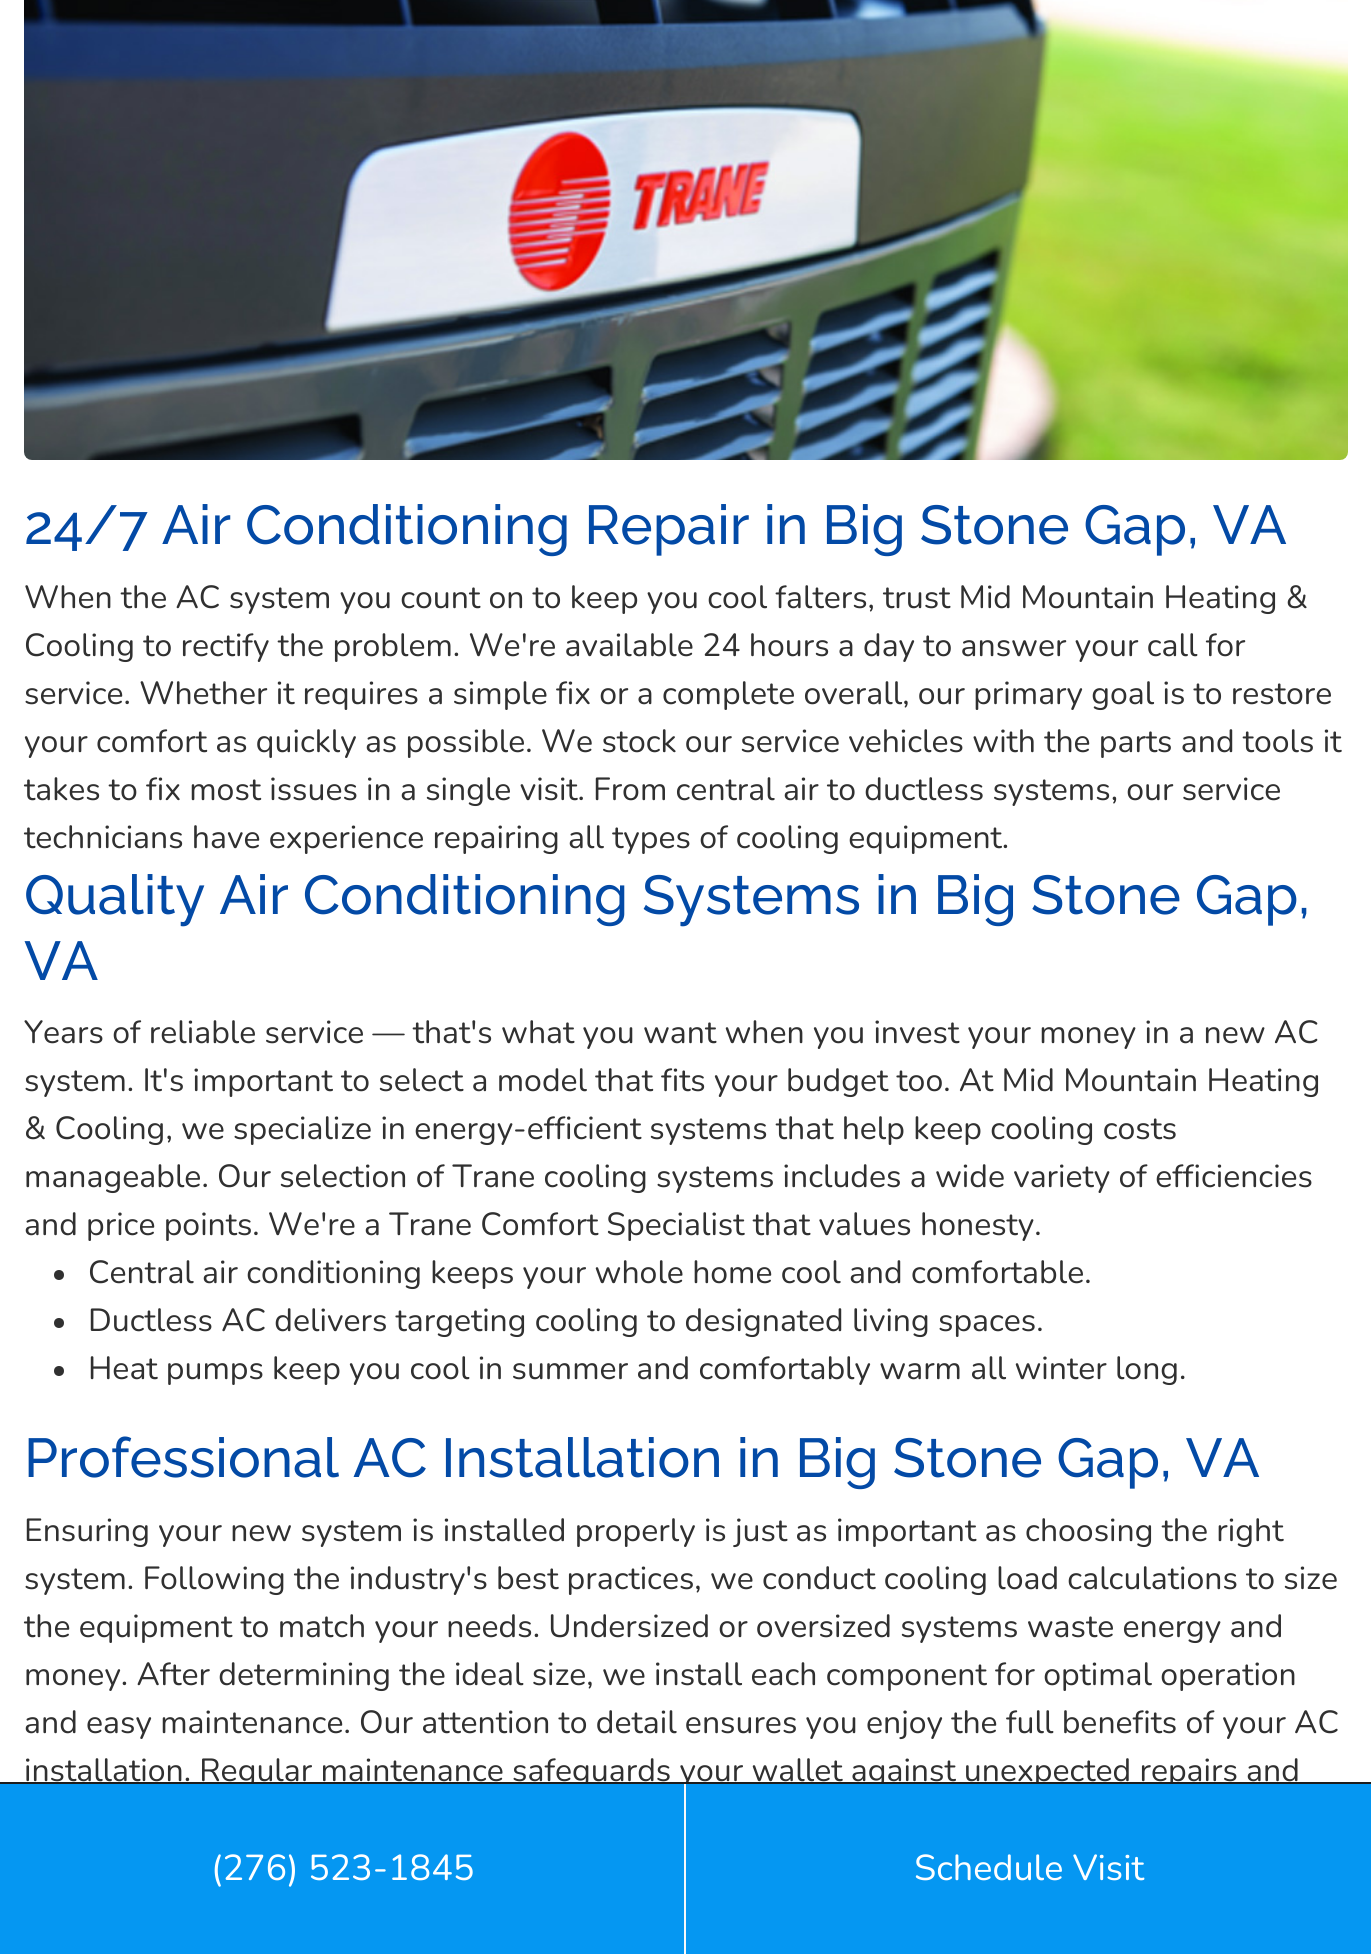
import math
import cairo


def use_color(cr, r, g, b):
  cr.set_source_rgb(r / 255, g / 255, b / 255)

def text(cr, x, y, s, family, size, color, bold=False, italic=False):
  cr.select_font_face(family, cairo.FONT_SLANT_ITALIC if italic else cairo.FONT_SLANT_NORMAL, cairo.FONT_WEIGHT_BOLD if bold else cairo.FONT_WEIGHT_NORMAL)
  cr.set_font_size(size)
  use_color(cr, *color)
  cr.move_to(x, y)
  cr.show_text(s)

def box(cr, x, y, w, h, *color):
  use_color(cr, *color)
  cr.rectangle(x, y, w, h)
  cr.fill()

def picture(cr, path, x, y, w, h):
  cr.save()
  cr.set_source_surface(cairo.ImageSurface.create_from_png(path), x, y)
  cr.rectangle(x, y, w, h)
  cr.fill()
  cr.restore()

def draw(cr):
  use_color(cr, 255, 255, 255)
  cr.paint()
  picture(cr, "img_01.png", 24, 0, 1324, 460)
  use_color(cr, 48, 48, 48)
  cr.arc(59, 1275, 5, 0, 2 * math.pi)
  cr.fill()
  cr.arc(59, 1323, 5, 0, 2 * math.pi)
  cr.fill()
  cr.arc(59, 1371, 5, 0, 2 * math.pi)
  cr.fill()
  text(cr, 24, 544, "24/7 Air Conditioning Repair in Big Stone Gap, VA", "Raleway Thin", 54.75, (3, 74, 166))
  text(cr, 24, 608, "When the AC system you count on to keep you cool falters, trust Mid Mountain Heating &", "Nunito ExtraLight", 32, (48, 48, 48))
  text(cr, 24, 656, "Cooling to rectify the problem. We're available 24 hours a day to answer your call for", "Nunito ExtraLight", 32, (48, 48, 48))
  text(cr, 24, 704, "service. Whether it requires a simple fix or a complete overall, our primary goal is to restore", "Nunito ExtraLight", 32, (48, 48, 48))
  text(cr, 24, 752, "your comfort as quickly as possible. We stock our service vehicles with the parts and tools it", "Nunito ExtraLight", 32, (48, 48, 48))
  text(cr, 24, 800, "takes to fix most issues in a single visit. From central air to ductless systems, our service", "Nunito ExtraLight", 32, (48, 48, 48))
  text(cr, 24, 848, "technicians have experience repairing all types of cooling equipment.", "Nunito ExtraLight", 32, (48, 48, 48))
  text(cr, 24, 914, "Quality Air Conditioning Systems in Big Stone Gap,", "Raleway Thin", 54.75, (3, 74, 166))
  text(cr, 24, 980, "VA", "Raleway Thin", 54.75, (3, 74, 166))
  text(cr, 24, 1043, "Years of reliable service — that's what you want when you invest your money in a new AC", "Nunito ExtraLight", 32, (48, 48, 48))
  text(cr, 24, 1091, "system. It's important to select a model that fits your budget too. At Mid Mountain Heating", "Nunito ExtraLight", 32, (48, 48, 48))
  text(cr, 24, 1139, "& Cooling, we specialize in energy-efficient systems that help keep cooling costs", "Nunito ExtraLight", 32, (48, 48, 48))
  text(cr, 24, 1187, "manageable. Our selection of Trane cooling systems includes a wide variety of efficiencies", "Nunito ExtraLight", 32, (48, 48, 48))
  text(cr, 24, 1235, "and price points. We're a Trane Comfort Specialist that values honesty.", "Nunito ExtraLight", 32, (48, 48, 48))
  text(cr, 88, 1283, "Central air conditioning keeps your whole home cool and comfortable.", "Nunito ExtraLight", 32, (48, 48, 48))
  text(cr, 88, 1331, "Ductless AC delivers targeting cooling to designated living spaces.", "Nunito ExtraLight", 32, (48, 48, 48))
  text(cr, 88, 1379, "Heat pumps keep you cool in summer and comfortably warm all winter long.", "Nunito ExtraLight", 32, (48, 48, 48))
  text(cr, 24, 1477, "Professional AC Installation in Big Stone Gap, VA", "Raleway Thin", 54.75, (3, 74, 166))
  text(cr, 24, 1541, "Ensuring your new system is installed properly is just as important as choosing the right", "Nunito ExtraLight", 32, (48, 48, 48))
  text(cr, 24, 1589, "system. Following the industry's best practices, we conduct cooling load calculations to size", "Nunito ExtraLight", 32, (48, 48, 48))
  text(cr, 24, 1637, "the equipment to match your needs. Undersized or oversized systems waste energy and", "Nunito ExtraLight", 32, (48, 48, 48))
  text(cr, 24, 1685, "money. After determining the ideal size, we install each component for optimal operation", "Nunito ExtraLight", 32, (48, 48, 48))
  text(cr, 24, 1733, "and easy maintenance. Our attention to detail ensures you enjoy the full benefits of your AC", "Nunito ExtraLight", 32, (48, 48, 48))
  text(cr, 24, 1781, "installation. Regular maintenance safeguards your wallet against unexpected repairs and", "Nunito ExtraLight", 32, (48, 48, 48))
  box(cr, 0, 1782, 1371, 2, 28, 28, 28)
  box(cr, 0, 1784, 684, 170, 5, 151, 242)
  box(cr, 684, 1784, 2, 170, 248, 249, 250)
  text(cr, 211, 1880, "(276) 523-1845", "Nunito ExtraLight", 36, (255, 255, 255))
  box(cr, 686, 1784, 685, 170, 5, 151, 242)
  text(cr, 914, 1880, "Schedule Visit", "Nunito ExtraLight", 36, (255, 255, 255))


surface = cairo.ImageSurface(cairo.FORMAT_RGB24, 1371, 1954)
cr = cairo.Context(surface)
options = cairo.FontOptions()
options.set_hint_metrics(cairo.HINT_METRICS_OFF)
options.set_hint_style(cairo.HINT_STYLE_NONE)
cr.set_font_options(options)
cr.set_miter_limit(4)
draw(cr)
surface.write_to_png("out.png")
